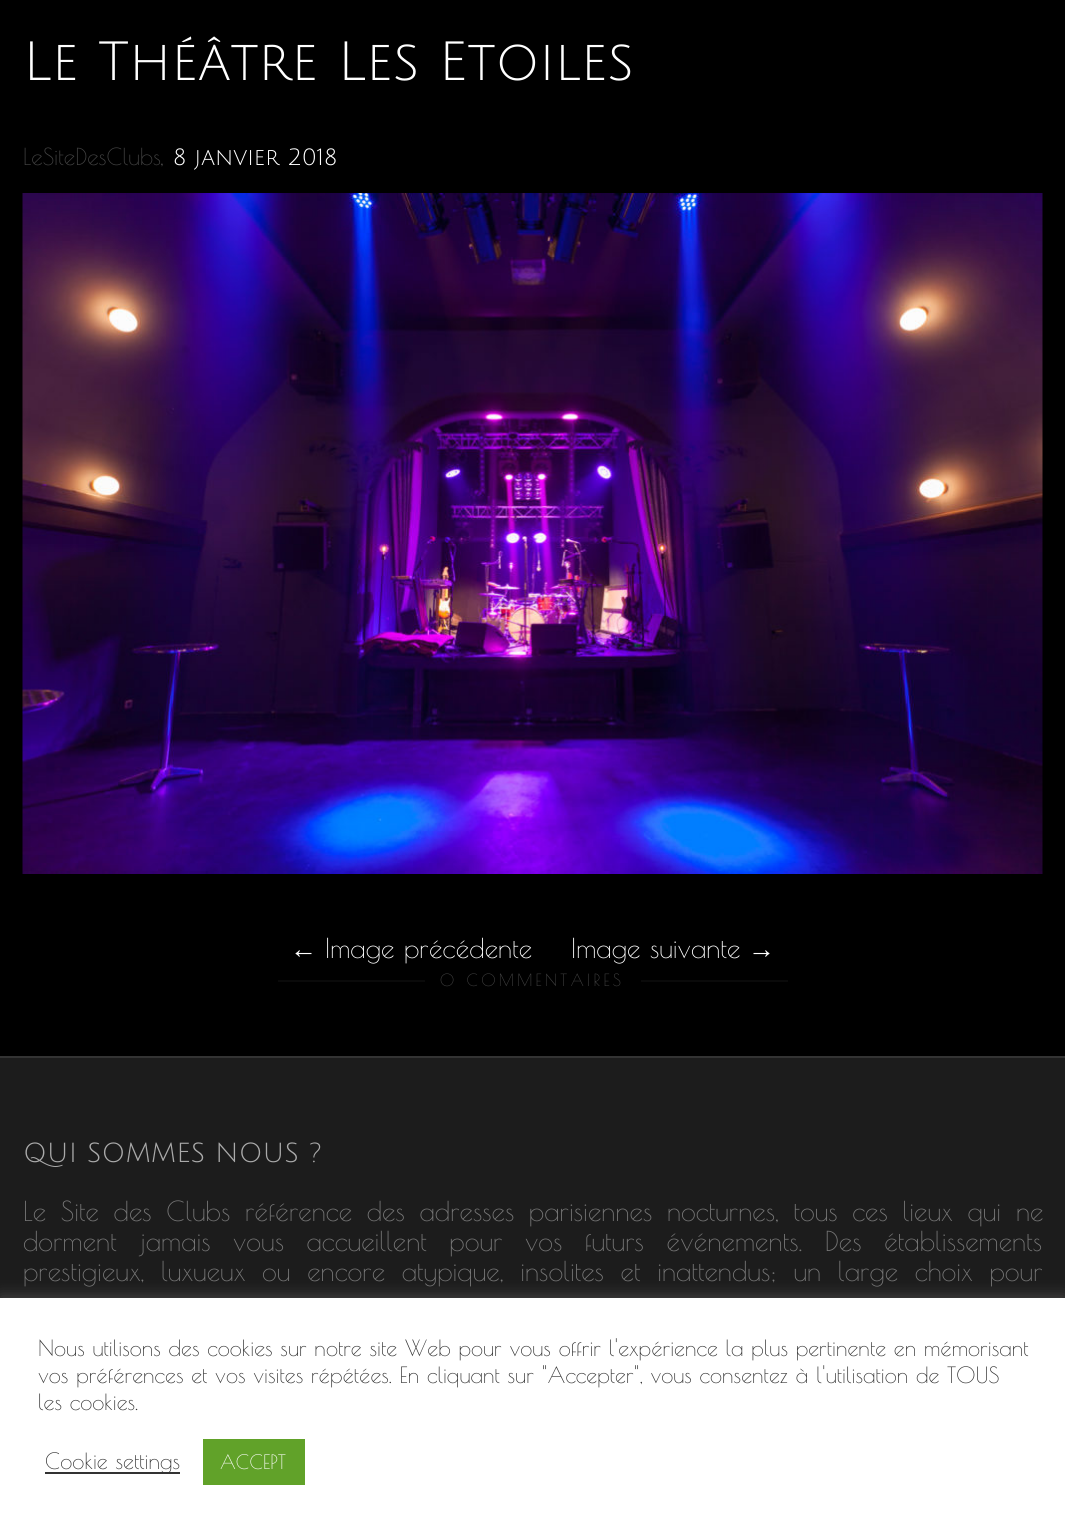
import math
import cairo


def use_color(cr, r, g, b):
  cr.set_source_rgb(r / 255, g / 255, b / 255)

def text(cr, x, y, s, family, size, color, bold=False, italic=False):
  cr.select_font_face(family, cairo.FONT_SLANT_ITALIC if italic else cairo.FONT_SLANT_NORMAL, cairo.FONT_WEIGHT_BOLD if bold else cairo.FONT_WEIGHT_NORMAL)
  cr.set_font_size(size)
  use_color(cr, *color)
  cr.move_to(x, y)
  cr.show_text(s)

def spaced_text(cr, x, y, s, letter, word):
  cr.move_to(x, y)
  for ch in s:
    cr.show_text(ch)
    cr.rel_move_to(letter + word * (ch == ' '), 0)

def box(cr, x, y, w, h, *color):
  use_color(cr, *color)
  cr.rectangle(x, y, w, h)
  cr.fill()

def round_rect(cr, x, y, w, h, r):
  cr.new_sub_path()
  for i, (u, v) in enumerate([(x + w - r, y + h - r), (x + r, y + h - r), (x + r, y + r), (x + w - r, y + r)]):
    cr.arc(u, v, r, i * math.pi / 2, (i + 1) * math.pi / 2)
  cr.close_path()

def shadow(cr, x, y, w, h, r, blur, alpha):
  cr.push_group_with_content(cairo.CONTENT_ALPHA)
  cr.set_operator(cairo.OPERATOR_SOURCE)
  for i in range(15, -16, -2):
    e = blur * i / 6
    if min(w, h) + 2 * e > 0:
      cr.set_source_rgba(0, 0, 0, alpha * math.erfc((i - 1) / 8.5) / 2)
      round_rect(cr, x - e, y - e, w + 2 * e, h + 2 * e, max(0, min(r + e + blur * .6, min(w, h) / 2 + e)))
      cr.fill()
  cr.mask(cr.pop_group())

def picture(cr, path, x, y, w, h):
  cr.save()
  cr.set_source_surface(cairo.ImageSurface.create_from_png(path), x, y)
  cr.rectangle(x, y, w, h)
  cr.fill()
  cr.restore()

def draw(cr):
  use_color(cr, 0, 0, 0)
  cr.paint()
  picture(cr, "img_01.png", 22, 193, 1021, 681)
  box(cr, 278, 980, 510, 2, 10, 10, 10)
  use_color(cr, 0, 0, 0)
  round_rect(cr, 425, 968, 216, 25, 3)
  cr.fill()
  box(cr, 0, 1058, 1065, 240, 28, 28, 28)
  box(cr, 0, 1056, 1065, 2, 51, 51, 51)
  use_color(cr, 172, 171, 171)
  shadow(cr, 0, 1296, 1065, 233, 0, 7.5, 0.3)
  box(cr, 0, 1298, 1065, 231, 255, 255, 255)
  box(cr, 45, 1472, 135, 2, 51, 51, 51)
  box(cr, 203, 1439, 102, 46, 97, 162, 41)
  text(cr, 23, 80, "Le Théâtre Les Etoiles", "Julius Sans One", 54, (255, 255, 255))
  text(cr, 23, 165, "LeSiteDesClubs", "Poiret One", 23, (68, 68, 68))
  text(cr, 160, 165, ",", "Poiret One", 27, (68, 68, 68))
  text(cr, 173, 165, "8 janvier 2018", "Julius Sans One", 23, (255, 255, 255))
  text(cr, 290, 958, "←", "Liberation Serif", 27, (255, 255, 255))
  text(cr, 325, 958, "Image précédente", "Poiret One", 27, (255, 255, 255))
  text(cr, 571, 958, "Image suivante", "Poiret One", 27, (255, 255, 255))
  text(cr, 748, 958, "→", "Liberation Serif", 27, (255, 255, 255))
  cr.select_font_face("Poiret One")
  cr.set_font_size(16.5)
  use_color(cr, 68, 68, 68)
  spaced_text(cr, 440, 986, "0 COMMENTAIRES", 3.25, 0)
  text(cr, 23, 1162, "QUI SOMMES NOUS ?", "Julius Sans One", 27, (170, 170, 170))
  cr.select_font_face("Poiret One")
  use_color(cr, 119, 119, 119)
  spaced_text(cr, 23, 1221, "Le Site des Clubs référence des adresses parisiennes nocturnes, tous ces lieux qui ne", 0, 5.25)
  spaced_text(cr, 23, 1251, "dorment jamais vous accueillent pour vos futurs événements. Des établissements", 0, 13)
  spaced_text(cr, 23, 1281, "prestigieux, luxueux ou encore atypique, insolites et inattendus; un large choix pour", 0, 7.25)
  text(cr, 38, 1356, "Nous utilisons des cookies sur notre site Web pour vous offrir l'expérience la plus pertinente en mémorisant", "Poiret One", 22, (51, 51, 51))
  text(cr, 38, 1383, "vos préférences et vos visites répétées. En cliquant sur \"Accepter\", vous consentez à l'utilisation de TOUS", "Poiret One", 22, (51, 51, 51))
  text(cr, 38, 1410, "les cookies.", "Poiret One", 22, (51, 51, 51))
  text(cr, 45, 1469, "Cookie settings", "Poiret One", 22, (51, 51, 51))
  text(cr, 220, 1469, "ACCEPT", "Poiret One", 19.5, (255, 255, 255))


surface = cairo.ImageSurface(cairo.FORMAT_RGB24, 1065, 1529)
cr = cairo.Context(surface)
options = cairo.FontOptions()
options.set_hint_metrics(cairo.HINT_METRICS_OFF)
options.set_hint_style(cairo.HINT_STYLE_NONE)
cr.set_font_options(options)
cr.set_miter_limit(4)
draw(cr)
surface.write_to_png("out.png")
